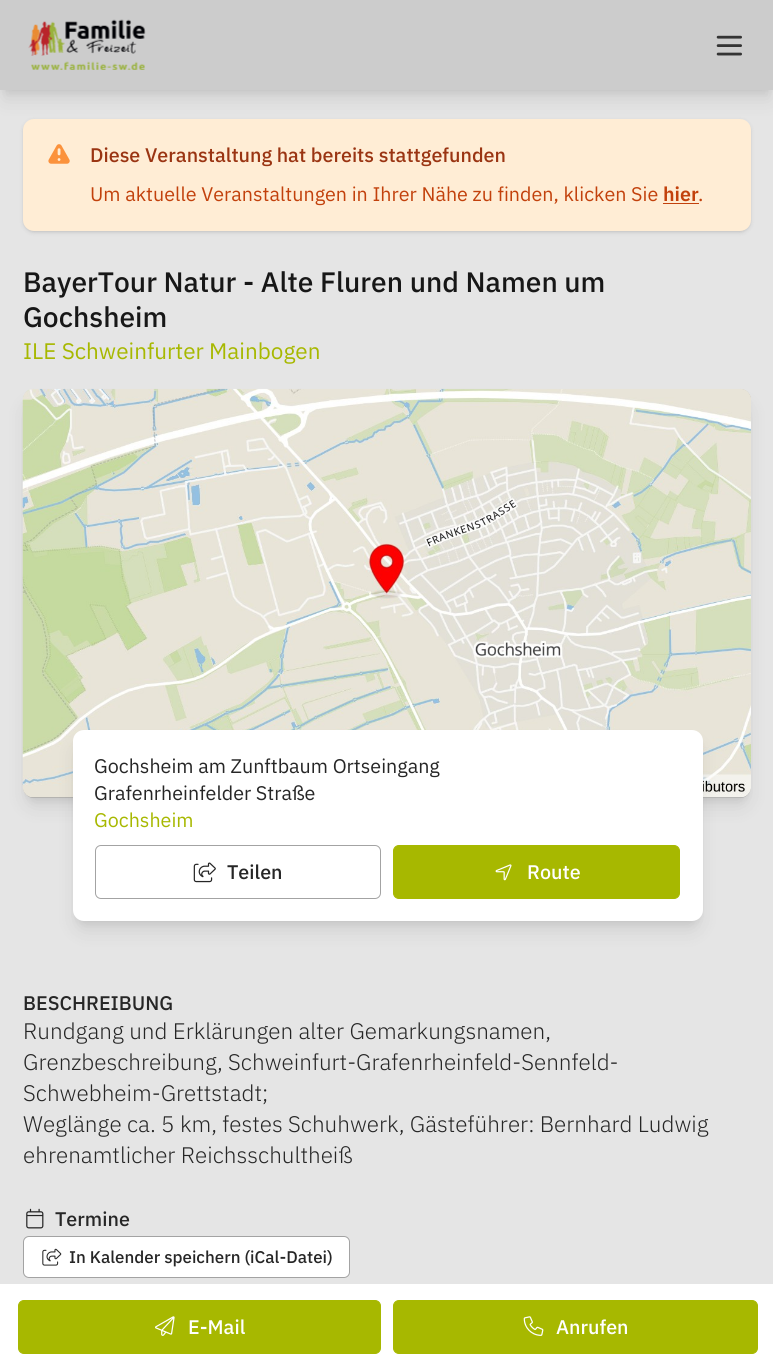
import math
import cairo


def use_color(cr, r, g, b):
  cr.set_source_rgb(r / 255, g / 255, b / 255)

def text(cr, x, y, s, family, size, color, bold=False, italic=False):
  cr.select_font_face(family, cairo.FONT_SLANT_ITALIC if italic else cairo.FONT_SLANT_NORMAL, cairo.FONT_WEIGHT_BOLD if bold else cairo.FONT_WEIGHT_NORMAL)
  cr.set_font_size(size)
  use_color(cr, *color)
  cr.move_to(x, y)
  cr.show_text(s)

def box(cr, x, y, w, h, *color):
  use_color(cr, *color)
  cr.rectangle(x, y, w, h)
  cr.fill()

def round_rect(cr, x, y, w, h, r):
  cr.new_sub_path()
  for i, (u, v) in enumerate([(x + w - r, y + h - r), (x + r, y + h - r), (x + r, y + r), (x + w - r, y + r)]):
    cr.arc(u, v, r, i * math.pi / 2, (i + 1) * math.pi / 2)
  cr.close_path()

def shadow(cr, x, y, w, h, r, blur, alpha):
  cr.push_group_with_content(cairo.CONTENT_ALPHA)
  cr.set_operator(cairo.OPERATOR_SOURCE)
  for i in range(15, -16, -2):
    e = blur * i / 6
    if min(w, h) + 2 * e > 0:
      cr.set_source_rgba(0, 0, 0, alpha * math.erfc((i - 1) / 8.5) / 2)
      round_rect(cr, x - e, y - e, w + 2 * e, h + 2 * e, max(0, min(r + e + blur * .6, min(w, h) / 2 + e)))
      cr.fill()
  cr.mask(cr.pop_group())

def picture(cr, path, x, y, w, h):
  cr.save()
  cr.set_source_surface(cairo.ImageSurface.create_from_png(path), x, y)
  cr.rectangle(x, y, w, h)
  cr.fill()
  cr.restore()

def draw(cr):
  use_color(cr, 229, 229, 229)
  cr.paint()
  use_color(cr, 0, 0, 0)
  shadow(cr, 5, 10, 764, 80, 0, 4, 0.1)
  shadow(cr, 24, 121, 726, 110, 10, 1, 0.1)
  shadow(cr, 23, 120, 728, 113, 11, 2, 0.1)
  use_color(cr, 255, 237, 213)
  round_rect(cr, 23, 119, 728, 112, 11)
  cr.fill()
  use_color(cr, 0, 0, 0)
  shadow(cr, 4, 16, 766, 83, 0, 9.5, 0.1)
  box(cr, 0, 0, 773, 90, 204, 204, 204)
  picture(cr, "img_01.png", 28, 19, 118, 51)
  picture(cr, "img_02.png", 716, 35, 26, 21)
  picture(cr, "img_03.png", 48, 144, 22, 20)
  box(cr, 663, 203, 36, 1, 194, 65, 12)
  use_color(cr, 0, 0, 0)
  shadow(cr, 28, 399, 718, 399, 6, 4, 0.1)
  shadow(cr, 26, 405, 722, 401, 8, 9.5, 0.1)
  use_color(cr, 163, 163, 163)
  round_rect(cr, 23, 389, 728, 409, 11)
  cr.fill()
  picture(cr, "img_04.png", 22, 388, 729, 410)
  use_color(cr, 0, 0, 0)
  shadow(cr, 78, 740, 620, 181, 6, 4, 0.1)
  shadow(cr, 76, 746, 623, 184, 8, 9.5, 0.1)
  use_color(cr, 255, 255, 255)
  round_rect(cr, 73, 730, 630, 191, 11)
  cr.fill()
  round_rect(cr, 95.5, 845.5, 285, 53, 5.5)
  use_color(cr, 163, 163, 163)
  cr.set_line_width(1)
  cr.stroke()
  picture(cr, "img_05.png", 193, 862, 23, 21)
  use_color(cr, 167, 184, 0)
  round_rect(cr, 393.5, 845.5, 286, 53, 5.5)
  cr.fill_preserve()
  cr.stroke()
  picture(cr, "img_06.png", 495, 864, 17, 17)
  picture(cr, "img_07.png", 26, 1208, 18, 21)
  use_color(cr, 255, 255, 255)
  round_rect(cr, 23.5, 1236.5, 326, 41, 5.5)
  cr.fill_preserve()
  use_color(cr, 163, 163, 163)
  cr.stroke()
  picture(cr, "img_08.png", 42, 1248, 20, 18)
  box(cr, 0, 1284, 773, 85, 255, 255, 255)
  use_color(cr, 167, 184, 0)
  round_rect(cr, 18.5, 1300.5, 362, 53, 5.5)
  cr.fill_preserve()
  cr.stroke()
  picture(cr, "img_09.png", 155, 1316, 20, 20)
  round_rect(cr, 393.5, 1300.5, 364, 53, 5.5)
  cr.fill_preserve()
  cr.stroke()
  picture(cr, "img_10.png", 523, 1316, 21, 20)
  text(cr, 90, 162, "Diese Veranstaltung hat bereits stattgefunden", "IBM Plex Sans Medium", 19.7, (154, 52, 18))
  text(cr, 90, 201, "Um aktuelle Veranstaltungen in Ihrer Nähe zu finden, klicken Sie", "IBM Plex Sans", 19.7, (194, 65, 12))
  text(cr, 663, 201, "hier", "IBM Plex Sans SemiBold", 19.7, (194, 65, 12))
  text(cr, 698, 201, ".", "IBM Plex Sans", 19.7, (194, 65, 12))
  text(cr, 23, 292, "BayerTour Natur - Alte Fluren und Namen um", "IBM Plex Sans Medium", 28.1, (23, 23, 23))
  text(cr, 23, 327, "Gochsheim", "IBM Plex Sans Medium", 28.1, (23, 23, 23))
  text(cr, 23, 359, "ILE Schweinfurter Mainbogen", "IBM Plex Sans", 22.5, (167, 184, 0))
  text(cr, 94, 773, "Gochsheim am Zunftbaum Ortseingang", "IBM Plex Sans", 19.7, (38, 38, 38))
  text(cr, 94, 800, "Grafenrheinfelder Straße", "IBM Plex Sans", 19.7, (38, 38, 38))
  text(cr, 94, 827, "Gochsheim", "IBM Plex Sans", 19.7, (167, 184, 0))
  text(cr, 227, 879, "Teilen", "IBM Plex Sans Medium", 19.7, (38, 38, 38))
  text(cr, 527, 879, "Route", "IBM Plex Sans Medium", 19.7, (255, 255, 255))
  text(cr, 23, 1010, "BESCHREIBUNG", "IBM Plex Sans Medium", 19.7, (38, 38, 38))
  text(cr, 23, 1039, "Rundgang und Erklärungen alter Gemarkungsnamen,", "IBM Plex Sans Light", 22.5, (38, 38, 38))
  text(cr, 23, 1070, "Grenzbeschreibung, Schweinfurt-Grafenrheinfeld-Sennfeld-", "IBM Plex Sans Light", 22.5, (38, 38, 38))
  text(cr, 23, 1101, "Schwebheim-Grettstadt;", "IBM Plex Sans Light", 22.5, (38, 38, 38))
  text(cr, 23, 1132, "Weglänge ca. 5 km, festes Schuhwerk, Gästeführer: Bernhard Ludwig", "IBM Plex Sans Light", 22.5, (38, 38, 38))
  text(cr, 23, 1163, "ehrenamtlicher Reichsschultheiß", "IBM Plex Sans Light", 22.5, (38, 38, 38))
  text(cr, 55, 1226, "Termine", "IBM Plex Sans Medium", 19.7, (38, 38, 38))
  text(cr, 69, 1263, "In Kalender speichern (iCal-Datei)", "IBM Plex Sans Medium", 16.9, (38, 38, 38))
  text(cr, 188, 1334, "E-Mail", "IBM Plex Sans Medium", 19.7, (255, 255, 255))
  text(cr, 556, 1334, "Anrufen", "IBM Plex Sans Medium", 19.7, (255, 255, 255))


surface = cairo.ImageSurface(cairo.FORMAT_RGB24, 773, 1369)
cr = cairo.Context(surface)
options = cairo.FontOptions()
options.set_hint_metrics(cairo.HINT_METRICS_OFF)
options.set_hint_style(cairo.HINT_STYLE_NONE)
cr.set_font_options(options)
cr.set_miter_limit(4)
draw(cr)
surface.write_to_png("out.png")
